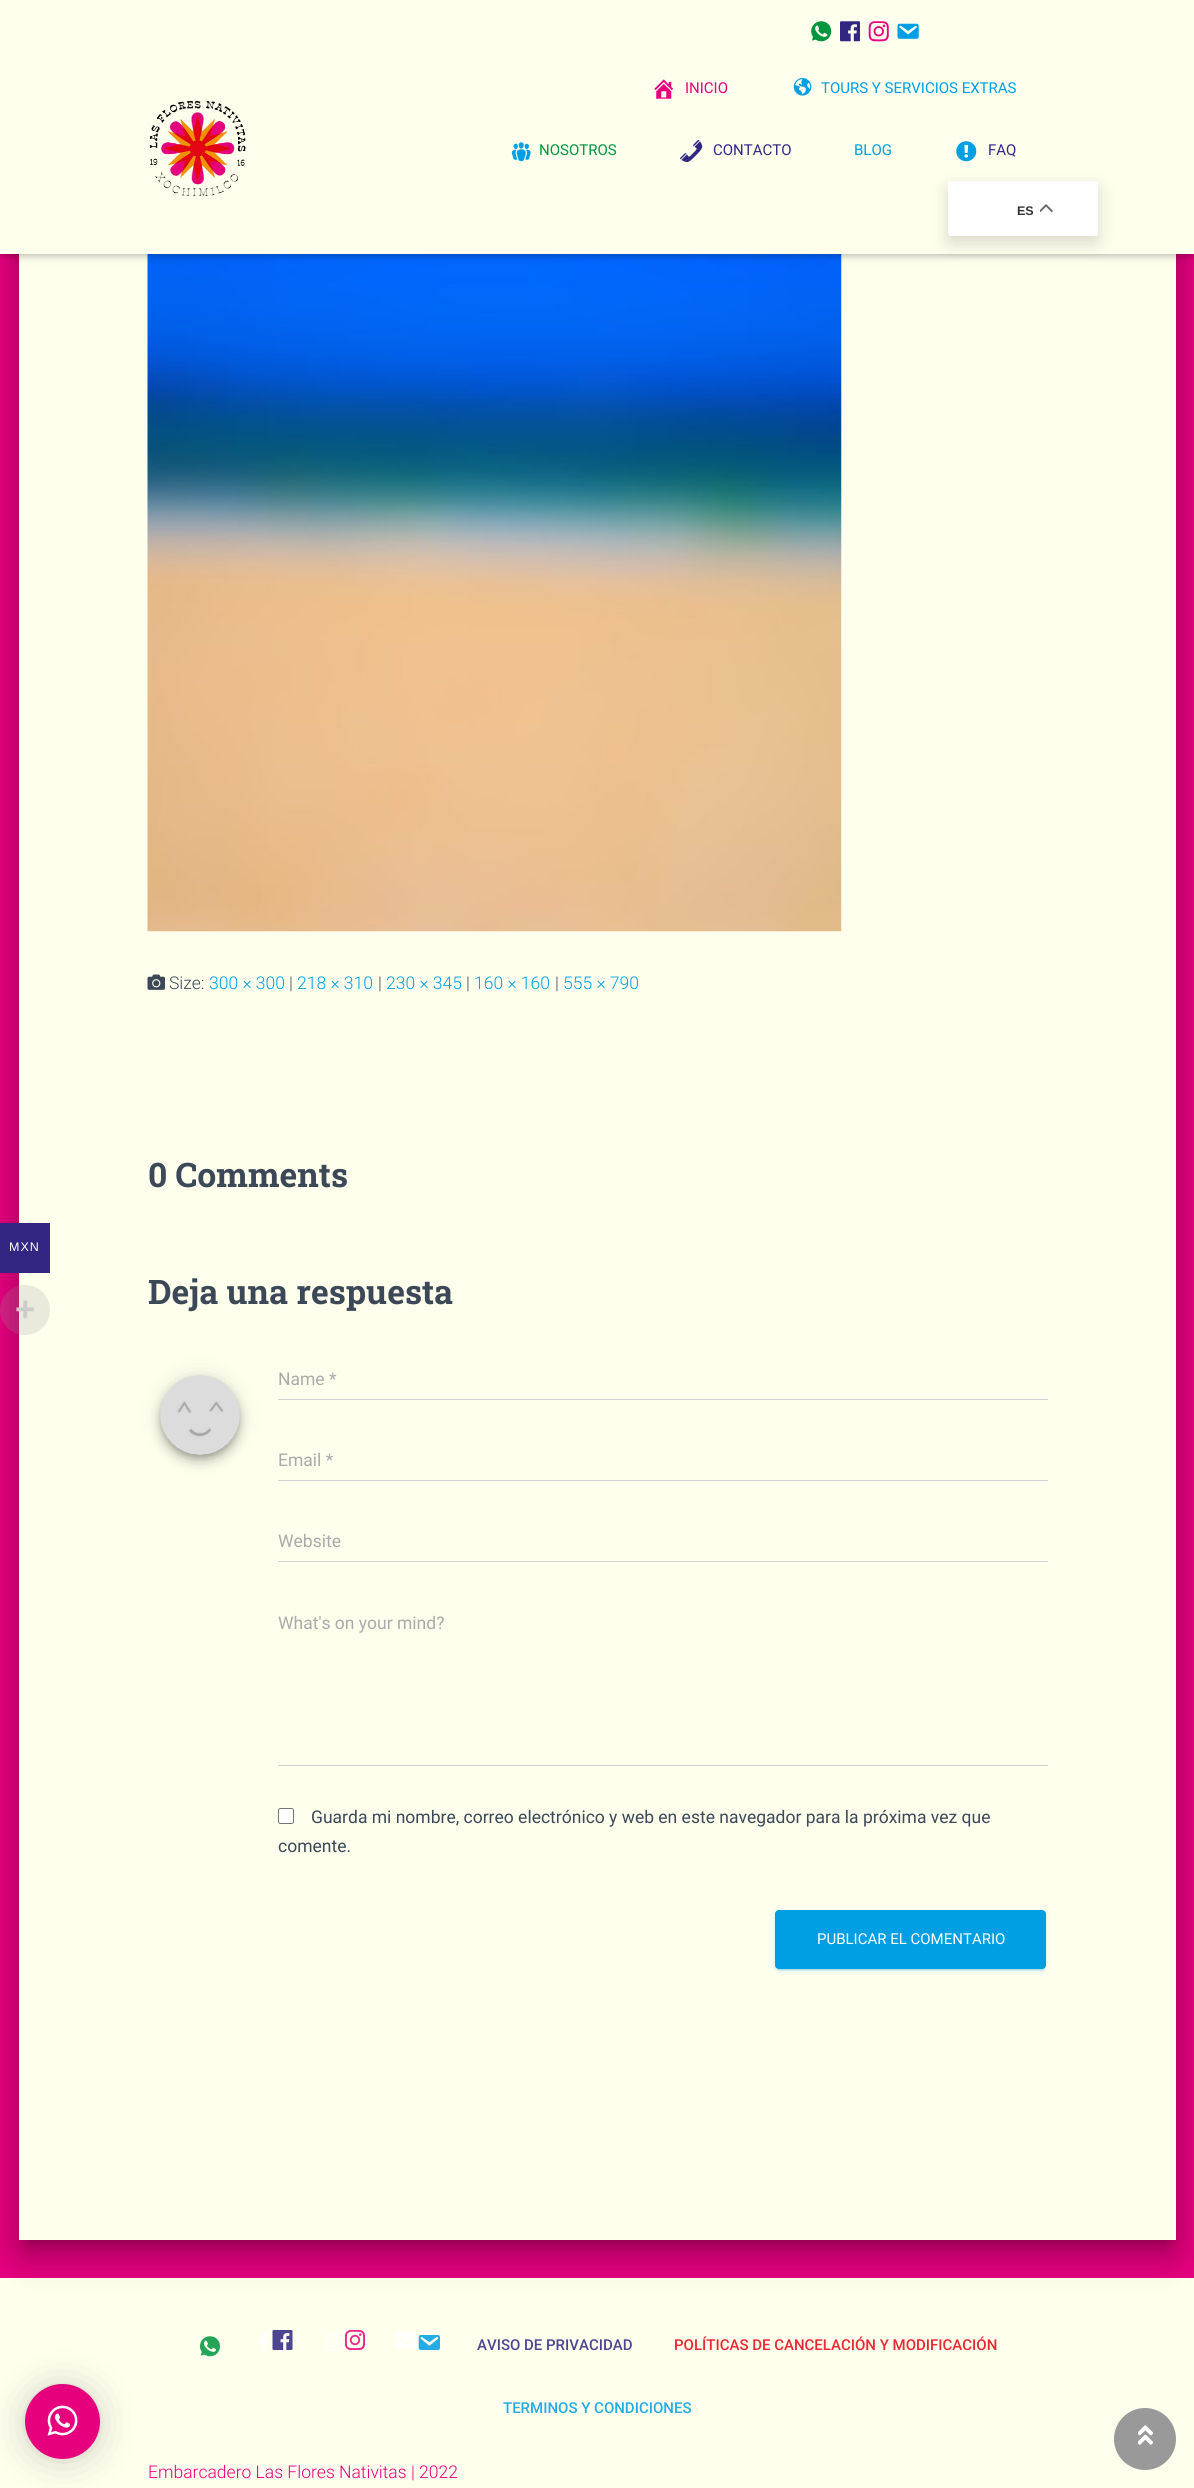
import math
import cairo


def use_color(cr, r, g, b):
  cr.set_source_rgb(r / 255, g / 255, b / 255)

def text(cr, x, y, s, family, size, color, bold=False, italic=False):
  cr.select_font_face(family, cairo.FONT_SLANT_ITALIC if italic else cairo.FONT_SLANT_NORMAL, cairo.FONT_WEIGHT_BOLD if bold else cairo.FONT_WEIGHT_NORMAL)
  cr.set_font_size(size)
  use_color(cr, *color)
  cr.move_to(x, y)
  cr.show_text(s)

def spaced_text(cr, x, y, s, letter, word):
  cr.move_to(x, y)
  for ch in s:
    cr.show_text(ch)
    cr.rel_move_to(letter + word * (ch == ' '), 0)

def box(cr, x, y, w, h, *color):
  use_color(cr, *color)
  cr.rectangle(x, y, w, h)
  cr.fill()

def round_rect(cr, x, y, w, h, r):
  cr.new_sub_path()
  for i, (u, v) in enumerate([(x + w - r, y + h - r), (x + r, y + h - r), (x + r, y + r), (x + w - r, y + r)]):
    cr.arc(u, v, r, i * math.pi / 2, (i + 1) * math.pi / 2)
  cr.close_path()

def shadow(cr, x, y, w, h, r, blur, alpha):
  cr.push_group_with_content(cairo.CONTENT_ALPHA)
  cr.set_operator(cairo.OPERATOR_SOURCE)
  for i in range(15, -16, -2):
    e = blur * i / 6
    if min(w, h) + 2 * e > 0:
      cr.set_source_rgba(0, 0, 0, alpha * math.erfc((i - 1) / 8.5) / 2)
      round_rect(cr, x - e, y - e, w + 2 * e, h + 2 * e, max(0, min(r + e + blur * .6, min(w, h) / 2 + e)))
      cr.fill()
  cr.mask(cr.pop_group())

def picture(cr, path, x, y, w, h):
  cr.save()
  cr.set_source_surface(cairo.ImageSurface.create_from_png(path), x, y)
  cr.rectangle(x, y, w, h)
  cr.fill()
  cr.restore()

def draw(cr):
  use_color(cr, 230, 0, 126)
  cr.paint()
  use_color(cr, 0, 0, 0)
  shadow(cr, 25, -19, 1145, 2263, 1, 6, 0.2)
  box(cr, 0, 2278, 1194, 210, 254, 255, 237)
  use_color(cr, 0, 0, 0)
  shadow(cr, 13, -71, 1170, 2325, 14, 19, 0.12)
  shadow(cr, 16, -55, 1163, 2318, 10, 15, 0.14)
  box(cr, 19, 254, 1157, 1986, 254, 255, 237)
  box(cr, 0, 1223, 50, 50, 49, 39, 131)
  cr.set_source_rgba(0.6, 0.6, 0.6, 0.2)
  cr.arc(25, 1310, 25, 0, 2 * math.pi)
  cr.fill()
  picture(cr, "img_12.png", 147, 254, 695, 678)
  use_color(cr, 0, 0, 0)
  shadow(cr, 3, 8, 1190, 248, 0, 3, 0.1)
  shadow(cr, 0, 1, 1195, 254, 0, 6, 0.12)
  shadow(cr, 8, 9, 1180, 239, 0, 6, 0.42)
  box(cr, 0, 0, 1194, 254, 254, 255, 237)
  picture(cr, "img_01.png", 811, 21, 21, 21)
  picture(cr, "img_02.png", 840, 21, 20, 21)
  picture(cr, "img_03.png", 868, 21, 21, 21)
  picture(cr, "img_04.png", 897, 23, 22, 16)
  picture(cr, "img_05.png", 149, 100, 97, 96)
  picture(cr, "img_06.png", 654, 79, 20, 20)
  picture(cr, "img_07.png", 793, 78, 19, 18)
  picture(cr, "img_08.png", 511, 142, 20, 20)
  picture(cr, "img_09.png", 680, 139, 23, 23)
  picture(cr, "img_10.png", 956, 141, 21, 21)
  use_color(cr, 0, 0, 0)
  shadow(cr, 948, 188, 150, 55, 2.5, 9.5, 0.15)
  use_color(cr, 255, 255, 255)
  round_rect(cr, 948, 181, 150, 55, 2.5)
  cr.fill()
  picture(cr, "img_11.png", 1040, 204, 13, 9)
  picture(cr, "img_13.png", 147, 974, 18, 16)
  use_color(cr, 0, 0, 0)
  shadow(cr, 161, 1380, 78, 78, 39, 3, 0.2)
  shadow(cr, 160, 1376, 80, 80, 40, 11, 0.12)
  shadow(cr, 160, 1383, 80, 80, 40, 6, 0.14)
  picture(cr, "img_14.png", 160, 1375, 80, 80)
  box(cr, 278, 1399, 770, 1, 210, 210, 210)
  box(cr, 278, 1480, 770, 1, 210, 210, 210)
  box(cr, 278, 1561, 770, 1, 210, 210, 210)
  box(cr, 278, 1765, 770, 1, 210, 210, 210)
  use_color(cr, 255, 255, 255)
  round_rect(cr, 278.5, 1808.5, 15, 15, 2)
  cr.fill_preserve()
  use_color(cr, 118, 118, 118)
  cr.set_line_width(1)
  cr.stroke()
  use_color(cr, 0, 159, 227)
  shadow(cr, 775, 1911, 271, 59, 4, 3, 0.12)
  shadow(cr, 778, 1916, 266, 54, 1, 0.5, 0.2)
  shadow(cr, 775, 1913, 271, 58, 4, 1, 0.14)
  use_color(cr, 0, 159, 227)
  round_rect(cr, 775, 1910, 271, 59, 4)
  cr.fill()
  picture(cr, "img_15.png", 200, 2336, 20, 21)
  picture(cr, "img_16.png", 258, 2332, 11, 21)
  picture(cr, "img_17.png", 272, 2330, 21, 20)
  picture(cr, "img_18.png", 325, 2333, 18, 19)
  picture(cr, "img_19.png", 345, 2330, 20, 20)
  picture(cr, "img_20.png", 396, 2332, 20, 16)
  picture(cr, "img_21.png", 418, 2335, 22, 15)
  use_color(cr, 0, 0, 0)
  shadow(cr, 25, 2386, 75, 75, 37.5, 20, 0.16)
  shadow(cr, 25, 2385, 75, 75, 37.5, 4, 0.06)
  use_color(cr, 230, 0, 126)
  cr.arc(62.5, 2421.5, 37.5, 0, 2 * math.pi)
  cr.fill()
  picture(cr, "img_22.png", 47, 2405, 31, 31)
  use_color(cr, 153, 153, 153)
  cr.arc(1145, 2439, 31, 0, 2 * math.pi)
  cr.fill()
  picture(cr, "img_23.png", 1138, 2425, 15, 20)
  cr.select_font_face("Liberation Sans")
  cr.set_font_size(12.5)
  use_color(cr, 255, 255, 255)
  spaced_text(cr, 9, 1251, "MXN", 1, 0)
  text(cr, 15, 1321, "+", "Liberation Sans", 35, (204, 204, 204), bold=True)
  text(cr, 685, 93, "INICIO", "Roboto", 15, (230, 0, 126))
  text(cr, 821, 93, "TOURS Y SERVICIOS EXTRAS", "Roboto", 15, (0, 159, 227))
  text(cr, 539, 155, "NOSOTROS", "Roboto", 15, (0, 150, 64))
  text(cr, 713, 155, "CONTACTO", "Roboto", 15, (49, 39, 131))
  text(cr, 854, 155, "BLOG", "Roboto", 15, (0, 159, 227))
  text(cr, 988, 155, "FAQ", "Roboto", 15, (49, 39, 131))
  text(cr, 1017, 215, "ES", "Liberation Sans", 12.5, (51, 51, 51), bold=True)
  text(cr, 169, 989, "Size:", "Roboto Light", 17.5, (60, 72, 88))
  text(cr, 209, 989, "300 × 300", "Roboto Light", 17.5, (0, 159, 227))
  text(cr, 289, 989, "|", "Roboto Light", 17.5, (60, 72, 88))
  text(cr, 297, 989, "218 × 310", "Roboto Light", 17.5, (0, 159, 227))
  text(cr, 378, 989, "|", "Roboto Light", 17.5, (60, 72, 88))
  text(cr, 386, 989, "230 × 345", "Roboto Light", 17.5, (0, 159, 227))
  text(cr, 466, 989, "|", "Roboto Light", 17.5, (60, 72, 88))
  text(cr, 474, 989, "160 × 160", "Roboto Light", 17.5, (0, 159, 227))
  text(cr, 555, 989, "|", "Roboto Light", 17.5, (60, 72, 88))
  text(cr, 563, 989, "555 × 790", "Roboto Light", 17.5, (0, 159, 227))
  text(cr, 148, 1187, "0 Comments", "Roboto Slab", 33.75, (60, 72, 88), bold=True)
  text(cr, 148, 1304, "Deja una respuesta", "Roboto Slab", 33.75, (60, 72, 88), bold=True)
  text(cr, 278, 1385, "Name *", "Roboto", 17.5, (170, 170, 170))
  text(cr, 278, 1466, "Email *", "Roboto", 17.5, (170, 170, 170))
  text(cr, 278, 1547, "Website", "Roboto", 17.5, (170, 170, 170))
  text(cr, 278, 1629, "What's on your mind?", "Roboto", 17.5, (170, 170, 170))
  text(cr, 311, 1823, "Guarda mi nombre, correo electrónico y web en este navegador para la próxima vez que", "Roboto", 17.5, (60, 72, 88))
  text(cr, 278, 1852, "comente.", "Roboto", 17.5, (60, 72, 88))
  text(cr, 817, 1944, "PUBLICAR EL COMENTARIO", "Roboto", 15, (255, 255, 255))
  text(cr, 477, 2350, "AVISO DE PRIVACIDAD", "Roboto Medium", 15, (78, 69, 146))
  text(cr, 674, 2350, "POLÍTICAS DE CANCELACIÓN Y MODIFICACIÓN", "Roboto Medium", 15, (230, 41, 50))
  text(cr, 503, 2413, "TERMINOS Y CONDICIONES", "Roboto Medium", 15, (36, 172, 228))
  text(cr, 148, 2478, "Embarcadero Las Flores Nativitas | 2022", "Roboto Light", 17.5, (230, 0, 126))


surface = cairo.ImageSurface(cairo.FORMAT_RGB24, 1194, 2488)
cr = cairo.Context(surface)
options = cairo.FontOptions()
options.set_hint_metrics(cairo.HINT_METRICS_OFF)
options.set_hint_style(cairo.HINT_STYLE_NONE)
cr.set_font_options(options)
cr.set_miter_limit(4)
draw(cr)
surface.write_to_png("out.png")
